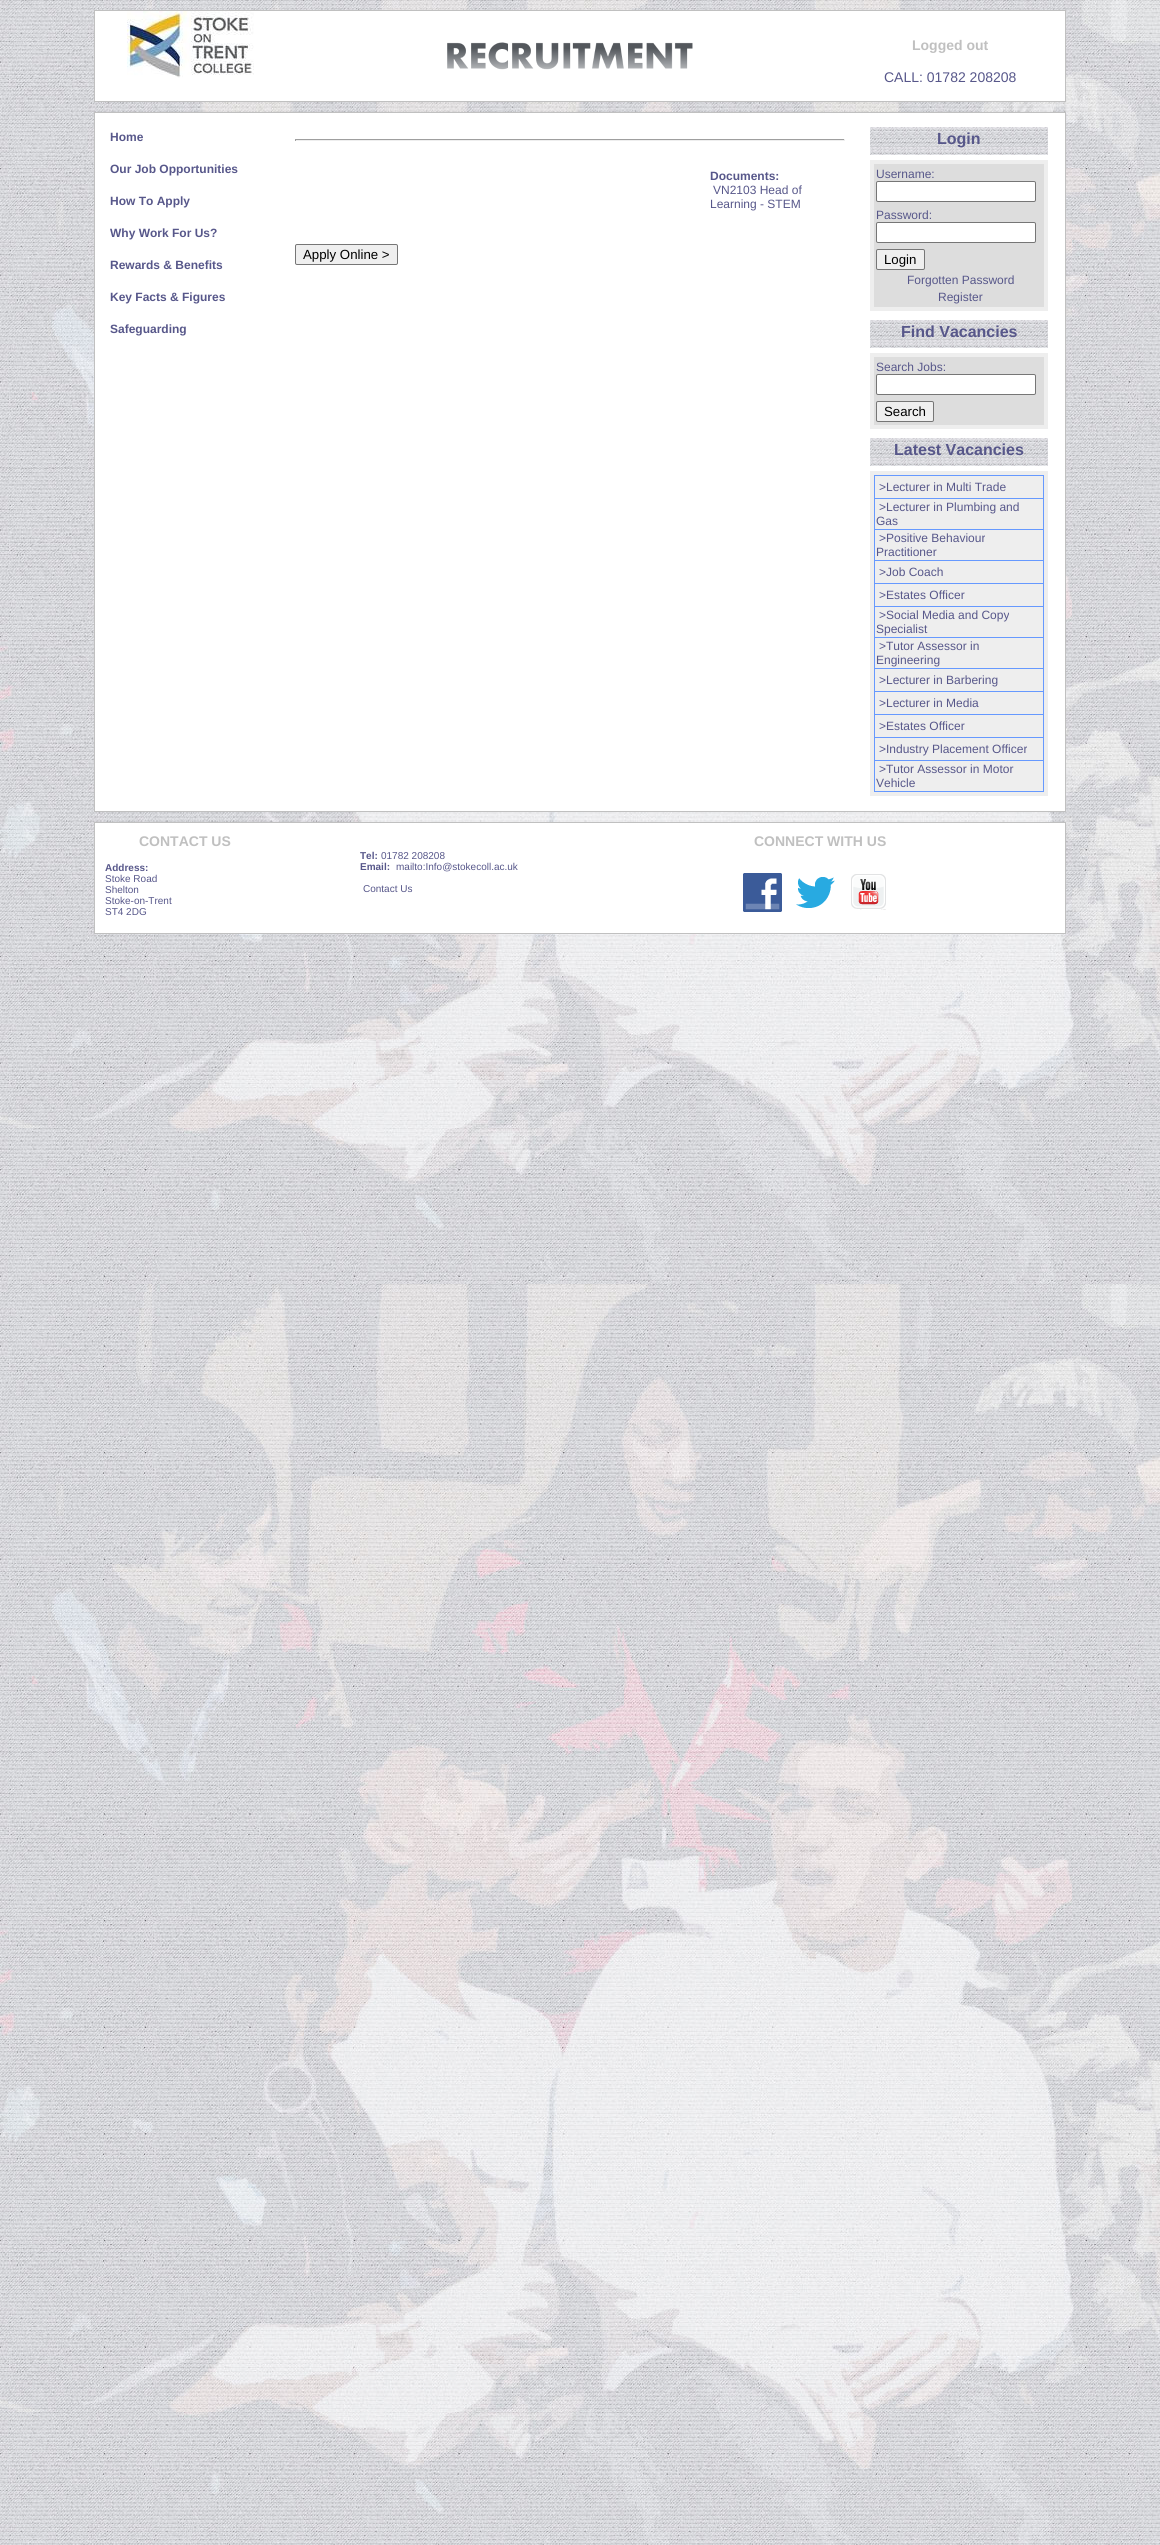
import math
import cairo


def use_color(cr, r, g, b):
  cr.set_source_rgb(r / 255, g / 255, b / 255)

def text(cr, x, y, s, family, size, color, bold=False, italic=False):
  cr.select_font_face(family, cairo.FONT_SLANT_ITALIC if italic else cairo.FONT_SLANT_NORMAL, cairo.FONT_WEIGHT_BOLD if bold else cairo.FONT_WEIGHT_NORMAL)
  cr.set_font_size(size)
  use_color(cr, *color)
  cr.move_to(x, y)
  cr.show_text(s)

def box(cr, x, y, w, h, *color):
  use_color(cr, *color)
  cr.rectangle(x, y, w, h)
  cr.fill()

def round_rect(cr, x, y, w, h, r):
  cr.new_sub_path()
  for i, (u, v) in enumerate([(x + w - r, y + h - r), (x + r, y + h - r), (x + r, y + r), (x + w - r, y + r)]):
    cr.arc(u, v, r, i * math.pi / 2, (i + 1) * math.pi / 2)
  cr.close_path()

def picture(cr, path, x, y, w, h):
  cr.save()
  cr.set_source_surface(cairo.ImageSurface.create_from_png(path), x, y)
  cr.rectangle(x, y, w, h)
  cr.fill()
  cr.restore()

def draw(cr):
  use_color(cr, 255, 255, 255)
  cr.paint()
  picture(cr, "img_01.png", 0, 0, 1160, 2545)
  use_color(cr, 255, 255, 255)
  cr.rectangle(94.5, 10.5, 971, 91)
  cr.fill_preserve()
  use_color(cr, 192, 192, 192)
  cr.set_line_width(1)
  cr.stroke()
  picture(cr, "img_02.png", 127, 11, 127, 67)
  picture(cr, "img_03.png", 447, 42, 246, 28)
  use_color(cr, 255, 255, 255)
  cr.rectangle(94.5, 112.5, 971, 699)
  cr.fill_preserve()
  use_color(cr, 192, 192, 192)
  cr.stroke()
  box(cr, 295, 139, 550, 1, 159, 159, 159)
  box(cr, 844, 139, 1, 2, 238, 238, 238)
  box(cr, 295, 140, 550, 1, 238, 238, 238)
  box(cr, 295, 139, 1, 2, 159, 159, 159)
  use_color(cr, 239, 239, 239)
  round_rect(cr, 295.5, 244.5, 102, 20, 1.5)
  cr.fill_preserve()
  use_color(cr, 118, 118, 118)
  cr.stroke()
  picture(cr, "img_04.png", 870, 127, 178, 28)
  box(cr, 870, 160, 178, 151, 238, 238, 238)
  box(cr, 874, 164, 170, 143, 221, 221, 221)
  use_color(cr, 255, 255, 255)
  round_rect(cr, 876.5, 181.5, 159, 20, 1.5)
  cr.fill_preserve()
  use_color(cr, 118, 118, 118)
  cr.stroke()
  use_color(cr, 255, 255, 255)
  round_rect(cr, 876.5, 222.5, 159, 20, 1.5)
  cr.fill_preserve()
  use_color(cr, 118, 118, 118)
  cr.stroke()
  use_color(cr, 239, 239, 239)
  round_rect(cr, 876.5, 249.5, 48, 20, 1.5)
  cr.fill_preserve()
  use_color(cr, 118, 118, 118)
  cr.stroke()
  picture(cr, "img_04.png", 870, 320, 178, 28)
  box(cr, 870, 353, 178, 76, 238, 238, 238)
  box(cr, 874, 357, 170, 68, 221, 221, 221)
  use_color(cr, 255, 255, 255)
  round_rect(cr, 876.5, 374.5, 159, 20, 1.5)
  cr.fill_preserve()
  use_color(cr, 118, 118, 118)
  cr.stroke()
  use_color(cr, 239, 239, 239)
  round_rect(cr, 876.5, 401.5, 57, 20, 1.5)
  cr.fill_preserve()
  use_color(cr, 118, 118, 118)
  cr.stroke()
  picture(cr, "img_04.png", 870, 438, 178, 28)
  box(cr, 870, 471, 178, 325, 238, 238, 238)
  box(cr, 874, 475, 170, 1, 102, 153, 255)
  box(cr, 874, 498, 170, 1, 102, 153, 255)
  box(cr, 874, 529, 170, 1, 102, 153, 255)
  box(cr, 874, 560, 170, 1, 102, 153, 255)
  box(cr, 874, 583, 170, 1, 102, 153, 255)
  box(cr, 874, 606, 170, 1, 102, 153, 255)
  box(cr, 874, 637, 170, 1, 102, 153, 255)
  box(cr, 874, 668, 170, 1, 102, 153, 255)
  box(cr, 874, 691, 170, 1, 102, 153, 255)
  box(cr, 874, 714, 170, 1, 102, 153, 255)
  box(cr, 874, 737, 170, 1, 102, 153, 255)
  box(cr, 874, 760, 170, 1, 102, 153, 255)
  box(cr, 1043, 760, 1, 32, 102, 153, 255)
  box(cr, 1043, 737, 1, 24, 102, 153, 255)
  box(cr, 1043, 714, 1, 24, 102, 153, 255)
  box(cr, 1043, 691, 1, 24, 102, 153, 255)
  box(cr, 1043, 668, 1, 24, 102, 153, 255)
  box(cr, 1043, 637, 1, 32, 102, 153, 255)
  box(cr, 1043, 606, 1, 32, 102, 153, 255)
  box(cr, 1043, 583, 1, 24, 102, 153, 255)
  box(cr, 1043, 560, 1, 24, 102, 153, 255)
  box(cr, 1043, 529, 1, 32, 102, 153, 255)
  box(cr, 1043, 498, 1, 32, 102, 153, 255)
  box(cr, 1043, 475, 1, 24, 102, 153, 255)
  box(cr, 874, 791, 170, 1, 102, 153, 255)
  box(cr, 874, 760, 1, 32, 102, 153, 255)
  box(cr, 874, 737, 1, 24, 102, 153, 255)
  box(cr, 874, 714, 1, 24, 102, 153, 255)
  box(cr, 874, 691, 1, 24, 102, 153, 255)
  box(cr, 874, 668, 1, 24, 102, 153, 255)
  box(cr, 874, 637, 1, 32, 102, 153, 255)
  box(cr, 874, 606, 1, 32, 102, 153, 255)
  box(cr, 874, 583, 1, 24, 102, 153, 255)
  box(cr, 874, 560, 1, 24, 102, 153, 255)
  box(cr, 874, 529, 1, 32, 102, 153, 255)
  box(cr, 874, 498, 1, 32, 102, 153, 255)
  box(cr, 874, 475, 1, 24, 102, 153, 255)
  use_color(cr, 255, 255, 255)
  cr.rectangle(94.5, 822.5, 971, 111)
  cr.fill_preserve()
  use_color(cr, 192, 192, 192)
  cr.stroke()
  picture(cr, "img_05.png", 743, 873, 39, 39)
  picture(cr, "img_06.png", 796, 877, 39, 31)
  picture(cr, "img_07.png", 851, 874, 35, 36)
  text(cr, 912, 50, "Logged out", "Liberation Sans", 14, (192, 192, 192), bold=True)
  text(cr, 884, 82, "CALL: 01782 208208", "Liberation Sans", 14, (87, 87, 138))
  text(cr, 110, 141, "Home", "Liberation Sans", 12, (87, 87, 138), bold=True)
  text(cr, 110, 173, "Our Job Opportunities", "Liberation Sans", 12, (87, 87, 138), bold=True)
  text(cr, 110, 205, "How To Apply", "Liberation Sans", 12, (87, 87, 138), bold=True)
  text(cr, 110, 237, "Why Work For Us?", "Liberation Sans", 12, (87, 87, 138), bold=True)
  text(cr, 110, 269, "Rewards & Benefits", "Liberation Sans", 12, (87, 87, 138), bold=True)
  text(cr, 110, 301, "Key Facts & Figures", "Liberation Sans", 12, (87, 87, 138), bold=True)
  text(cr, 110, 333, "Safeguarding", "Liberation Sans", 12, (87, 87, 138), bold=True)
  text(cr, 710, 180, "Documents:", "Liberation Sans", 12, (87, 87, 138), bold=True)
  text(cr, 713, 194, "VN2103 Head of", "Liberation Sans", 12, (87, 87, 138))
  text(cr, 710, 208, "Learning - STEM", "Liberation Sans", 12, (87, 87, 138))
  text(cr, 303, 259, "Apply Online >", "Liberation Sans", 13.25, (0, 0, 0))
  text(cr, 937, 144, "Login", "Liberation Sans", 16, (87, 87, 138), bold=True)
  text(cr, 876, 178, "Username:", "Liberation Sans", 12, (87, 87, 138))
  text(cr, 876, 219, "Password:", "Liberation Sans", 12, (87, 87, 138))
  text(cr, 884, 264, "Login", "Liberation Sans", 13.25, (0, 0, 0))
  text(cr, 907, 284, "Forgotten Password", "Liberation Sans", 12, (87, 87, 138))
  text(cr, 938, 301, "Register", "Liberation Sans", 12, (87, 87, 138))
  text(cr, 901, 337, "Find Vacancies", "Liberation Sans", 16, (87, 87, 138), bold=True)
  text(cr, 876, 371, "Search Jobs:", "Liberation Sans", 12, (87, 87, 138))
  text(cr, 884, 416, "Search", "Liberation Sans", 13.25, (0, 0, 0))
  text(cr, 894, 455, "Latest Vacancies", "Liberation Sans", 16, (87, 87, 138), bold=True)
  text(cr, 879, 491, ">Lecturer in Multi Trade", "Liberation Sans", 12, (87, 87, 138))
  text(cr, 879, 511, ">Lecturer in Plumbing and", "Liberation Sans", 12, (87, 87, 138))
  text(cr, 876, 525, "Gas", "Liberation Sans", 12, (87, 87, 138))
  text(cr, 879, 542, ">Positive Behaviour", "Liberation Sans", 12, (87, 87, 138))
  text(cr, 876, 556, "Practitioner", "Liberation Sans", 12, (87, 87, 138))
  text(cr, 879, 576, ">Job Coach", "Liberation Sans", 12, (87, 87, 138))
  text(cr, 879, 599, ">Estates Officer", "Liberation Sans", 12, (87, 87, 138))
  text(cr, 879, 619, ">Social Media and Copy", "Liberation Sans", 12, (87, 87, 138))
  text(cr, 876, 633, "Specialist", "Liberation Sans", 12, (87, 87, 138))
  text(cr, 879, 650, ">Tutor Assessor in", "Liberation Sans", 12, (87, 87, 138))
  text(cr, 876, 664, "Engineering", "Liberation Sans", 12, (87, 87, 138))
  text(cr, 879, 684, ">Lecturer in Barbering", "Liberation Sans", 12, (87, 87, 138))
  text(cr, 879, 707, ">Lecturer in Media", "Liberation Sans", 12, (87, 87, 138))
  text(cr, 879, 730, ">Estates Officer", "Liberation Sans", 12, (87, 87, 138))
  text(cr, 879, 753, ">Industry Placement Officer", "Liberation Sans", 12, (87, 87, 138))
  text(cr, 879, 773, ">Tutor Assessor in Motor", "Liberation Sans", 12, (87, 87, 138))
  text(cr, 876, 787, "Vehicle", "Liberation Sans", 12, (87, 87, 138))
  text(cr, 139, 846, "CONTACT US", "Liberation Sans", 14, (192, 192, 192), bold=True)
  text(cr, 105, 871, "Address:", "Liberation Sans", 10, (87, 87, 138), bold=True)
  text(cr, 105, 882, "Stoke Road", "Liberation Sans", 10, (87, 87, 138))
  text(cr, 105, 893, "Shelton", "Liberation Sans", 10, (87, 87, 138))
  text(cr, 105, 904, "Stoke-on-Trent", "Liberation Sans", 10, (87, 87, 138))
  text(cr, 105, 915, "ST4 2DG", "Liberation Sans", 10, (87, 87, 138))
  text(cr, 754, 846, "CONNECT WITH US", "Liberation Sans", 14, (192, 192, 192), bold=True)
  text(cr, 360, 859, "Tel:", "Liberation Sans", 10, (87, 87, 138), bold=True)
  text(cr, 381, 859, "01782 208208", "Liberation Sans", 10, (87, 87, 138))
  text(cr, 360, 870, "Email:", "Liberation Sans", 10, (87, 87, 138), bold=True)
  text(cr, 396, 870, "mailto:Info@stokecoll.ac.uk", "Liberation Sans", 10, (87, 87, 138))
  text(cr, 363, 892, "Contact Us", "Liberation Sans", 10, (87, 87, 138))


surface = cairo.ImageSurface(cairo.FORMAT_RGB24, 1160, 2545)
cr = cairo.Context(surface)
options = cairo.FontOptions()
options.set_hint_metrics(cairo.HINT_METRICS_OFF)
options.set_hint_style(cairo.HINT_STYLE_NONE)
cr.set_font_options(options)
cr.set_miter_limit(4)
draw(cr)
surface.write_to_png("out.png")
